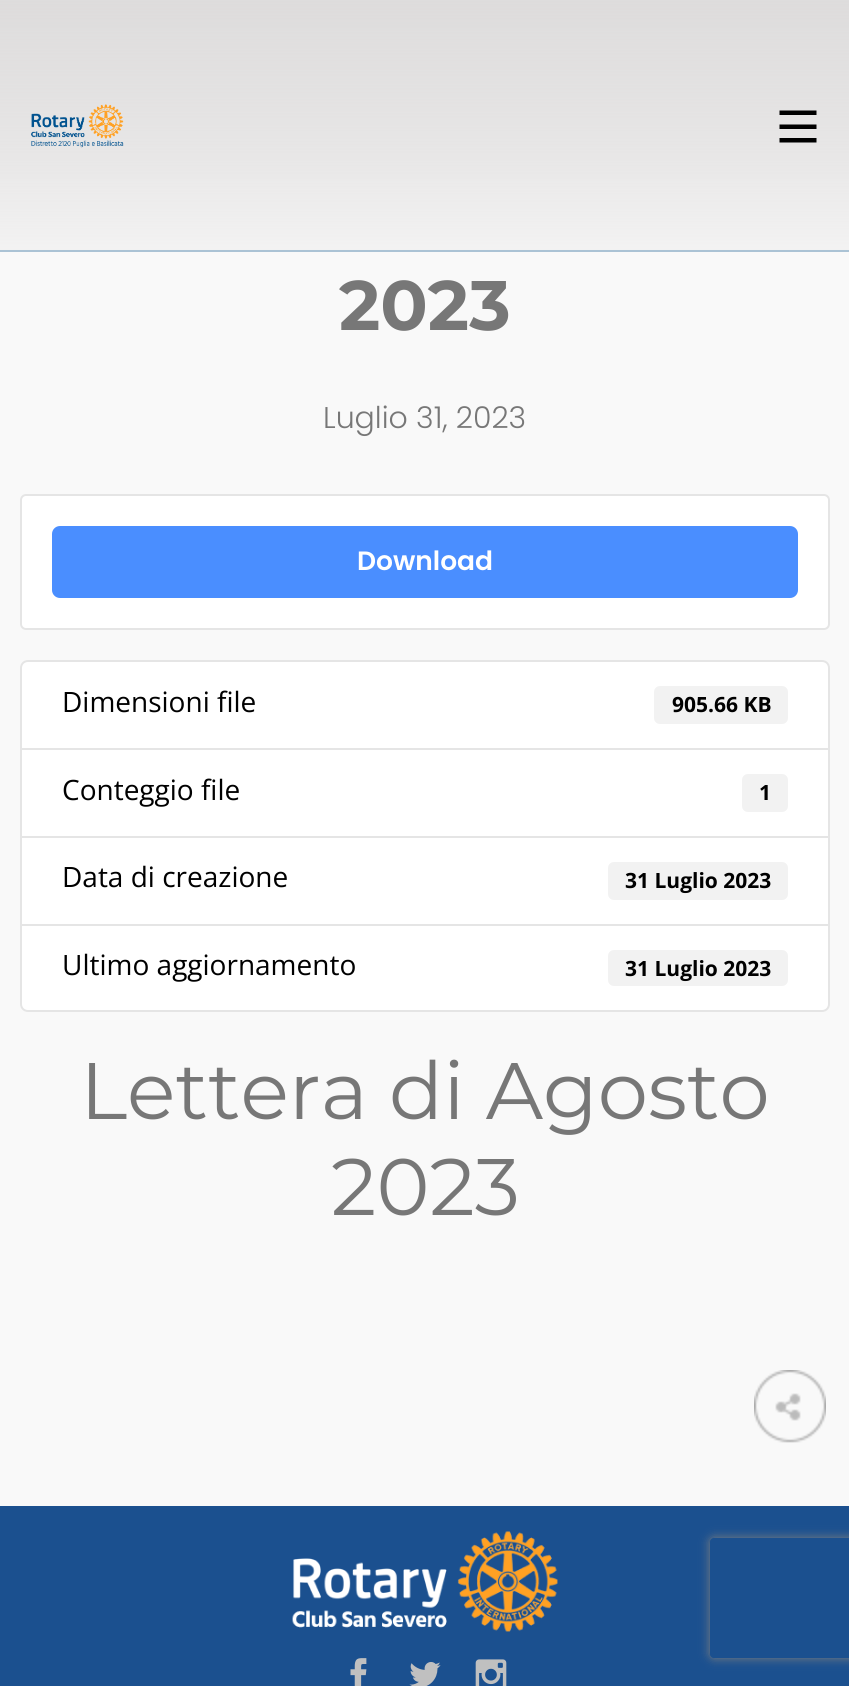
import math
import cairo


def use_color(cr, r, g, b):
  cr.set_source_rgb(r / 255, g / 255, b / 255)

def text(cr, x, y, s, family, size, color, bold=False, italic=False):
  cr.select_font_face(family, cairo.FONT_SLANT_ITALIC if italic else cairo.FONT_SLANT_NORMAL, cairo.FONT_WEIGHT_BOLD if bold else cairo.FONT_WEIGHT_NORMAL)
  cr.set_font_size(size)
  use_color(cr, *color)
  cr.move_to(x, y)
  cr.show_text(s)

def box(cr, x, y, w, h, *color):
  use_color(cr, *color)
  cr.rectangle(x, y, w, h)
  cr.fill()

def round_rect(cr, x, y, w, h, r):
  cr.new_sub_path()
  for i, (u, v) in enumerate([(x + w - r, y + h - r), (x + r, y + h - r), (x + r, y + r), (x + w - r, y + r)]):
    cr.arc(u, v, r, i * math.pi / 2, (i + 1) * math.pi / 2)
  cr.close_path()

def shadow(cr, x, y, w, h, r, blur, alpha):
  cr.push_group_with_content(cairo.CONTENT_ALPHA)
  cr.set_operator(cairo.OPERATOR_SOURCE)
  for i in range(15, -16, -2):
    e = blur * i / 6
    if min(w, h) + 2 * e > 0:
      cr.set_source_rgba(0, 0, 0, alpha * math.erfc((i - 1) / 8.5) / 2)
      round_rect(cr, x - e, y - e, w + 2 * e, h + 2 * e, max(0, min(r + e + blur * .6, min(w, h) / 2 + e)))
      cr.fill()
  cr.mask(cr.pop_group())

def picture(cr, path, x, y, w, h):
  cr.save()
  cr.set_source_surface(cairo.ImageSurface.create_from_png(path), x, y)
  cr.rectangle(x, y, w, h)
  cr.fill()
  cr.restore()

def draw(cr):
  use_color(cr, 249, 249, 249)
  cr.paint()
  gradient = cairo.LinearGradient(425, 0, 425, 1000)
  gradient.add_color_stop_rgba(0, 0.784, 0.773, 0.773, 0.55)
  gradient.add_color_stop_rgba(0.33, 1, 1, 1, 0.92)
  gradient.add_color_stop_rgba(0.66, 1, 1, 1, 1)
  gradient.add_color_stop_rgba(1, 1, 1, 1, 0.5)
  cr.set_source(gradient)
  cr.rectangle(0, 0, 849, 250)
  cr.fill()
  box(cr, 0, 250, 849, 2, 171, 195, 213)
  picture(cr, "img_01.png", 31, 104, 93, 44)
  use_color(cr, 0, 0, 0)
  cr.new_path()
  cr.move_to(779.5, 110.5)
  cr.line_to(816.5, 110.5)
  cr.line_to(816.5, 115)
  cr.line_to(779.5, 115)
  cr.close_path()
  cr.move_to(779.5, 124.5)
  cr.line_to(816.5, 124.5)
  cr.line_to(816.5, 129)
  cr.line_to(779.5, 129)
  cr.close_path()
  cr.move_to(779.5, 138)
  cr.line_to(816.5, 138)
  cr.line_to(816.5, 142.5)
  cr.line_to(779.5, 142.5)
  cr.close_path()
  cr.fill()
  use_color(cr, 255, 255, 255)
  round_rect(cr, 21, 495, 808, 134, 5)
  cr.fill_preserve()
  use_color(cr, 229, 229, 229)
  cr.stroke()
  use_color(cr, 74, 142, 255)
  round_rect(cr, 52, 526, 746, 72, 8)
  cr.fill()
  use_color(cr, 255, 255, 255)
  cr.new_path()
  cr.move_to(28, 661)
  cr.line_to(822, 661)
  cr.curve_to(826, 661, 829, 664, 829, 668)
  cr.line_to(829, 749)
  cr.line_to(21, 749)
  cr.line_to(21, 668)
  cr.curve_to(21, 664, 24, 661, 28, 661)
  cr.close_path()
  cr.fill_preserve()
  use_color(cr, 229, 229, 229)
  cr.stroke()
  use_color(cr, 242, 242, 242)
  round_rect(cr, 654, 686, 134, 38, 6)
  cr.fill()
  use_color(cr, 255, 255, 255)
  cr.rectangle(21, 749, 808, 88)
  cr.fill_preserve()
  use_color(cr, 229, 229, 229)
  cr.stroke()
  use_color(cr, 242, 242, 242)
  round_rect(cr, 742, 774, 46, 38, 6)
  cr.fill()
  use_color(cr, 255, 255, 255)
  cr.rectangle(21, 837, 808, 88)
  cr.fill_preserve()
  use_color(cr, 229, 229, 229)
  cr.stroke()
  use_color(cr, 242, 242, 242)
  round_rect(cr, 608, 862, 180, 38, 6)
  cr.fill()
  use_color(cr, 255, 255, 255)
  cr.new_path()
  cr.move_to(21, 925)
  cr.line_to(829, 925)
  cr.line_to(829, 1004)
  cr.curve_to(829, 1008, 826, 1011, 822, 1011)
  cr.line_to(28, 1011)
  cr.curve_to(24, 1011, 21, 1008, 21, 1004)
  cr.close_path()
  cr.fill_preserve()
  use_color(cr, 229, 229, 229)
  cr.stroke()
  use_color(cr, 242, 242, 242)
  round_rect(cr, 608, 950, 180, 36, 6)
  cr.fill()
  picture(cr, "img_02.png", 754, 1370, 72, 73)
  box(cr, 0, 1506, 849, 180, 27, 80, 143)
  picture(cr, "img_03.png", 292, 1531, 266, 101)
  picture(cr, "img_04.png", 350, 1658, 17, 28)
  picture(cr, "img_05.png", 409, 1662, 32, 24)
  picture(cr, "img_06.png", 475, 1659, 32, 27)
  cr.save()
  cr.set_fill_rule(cairo.FILL_RULE_EVEN_ODD)
  cr.new_path()
  cr.move_to(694, 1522)
  cr.line_to(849, 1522)
  cr.line_to(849, 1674)
  cr.line_to(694, 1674)
  cr.close_path()
  cr.move_to(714, 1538)
  cr.line_to(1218, 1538)
  cr.curve_to(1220, 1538, 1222, 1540, 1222, 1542)
  cr.line_to(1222, 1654)
  cr.curve_to(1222, 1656, 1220, 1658, 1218, 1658)
  cr.line_to(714, 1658)
  cr.curve_to(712, 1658, 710, 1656, 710, 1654)
  cr.line_to(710, 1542)
  cr.curve_to(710, 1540, 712, 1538, 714, 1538)
  cr.close_path()
  cr.clip()
  use_color(cr, 128, 128, 128)
  shadow(cr, 710, 1538, 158, 120, 4, 5, 1)
  cr.restore()
  text(cr, 339, 330, "2023", "Montserrat", 70, (119, 119, 119), bold=True)
  text(cr, 323, 428, "Luglio 31, 2023", "Poppins Light", 30, (119, 119, 119))
  text(cr, 357, 570, "Download", "Poppins SemiBold", 26.5, (255, 255, 255))
  text(cr, 62, 712, "Dimensioni file", "Open Sans", 28, (0, 0, 0))
  text(cr, 672, 712, "905.66 KB", "Open Sans", 21, (0, 0, 0), bold=True)
  text(cr, 62, 800, "Conteggio file", "Open Sans", 28, (0, 0, 0))
  text(cr, 759, 800, "1", "Open Sans", 21, (0, 0, 0), bold=True)
  text(cr, 62, 887, "Data di creazione", "Open Sans", 28, (0, 0, 0))
  text(cr, 625, 888, "31 Luglio 2023", "Open Sans", 21, (0, 0, 0), bold=True)
  text(cr, 62, 975, "Ultimo aggiornamento", "Open Sans", 28, (0, 0, 0))
  text(cr, 625, 976, "31 Luglio 2023", "Open Sans", 21, (0, 0, 0), bold=True)
  text(cr, 80, 1119, "Lettera di Agosto", "Montserrat", 80, (119, 119, 119))
  text(cr, 331, 1215, "2023", "Montserrat", 80, (119, 119, 119))


surface = cairo.ImageSurface(cairo.FORMAT_RGB24, 849, 1686)
cr = cairo.Context(surface)
options = cairo.FontOptions()
options.set_hint_metrics(cairo.HINT_METRICS_OFF)
options.set_hint_style(cairo.HINT_STYLE_NONE)
cr.set_font_options(options)
cr.set_miter_limit(4)
draw(cr)
surface.write_to_png("out.png")
